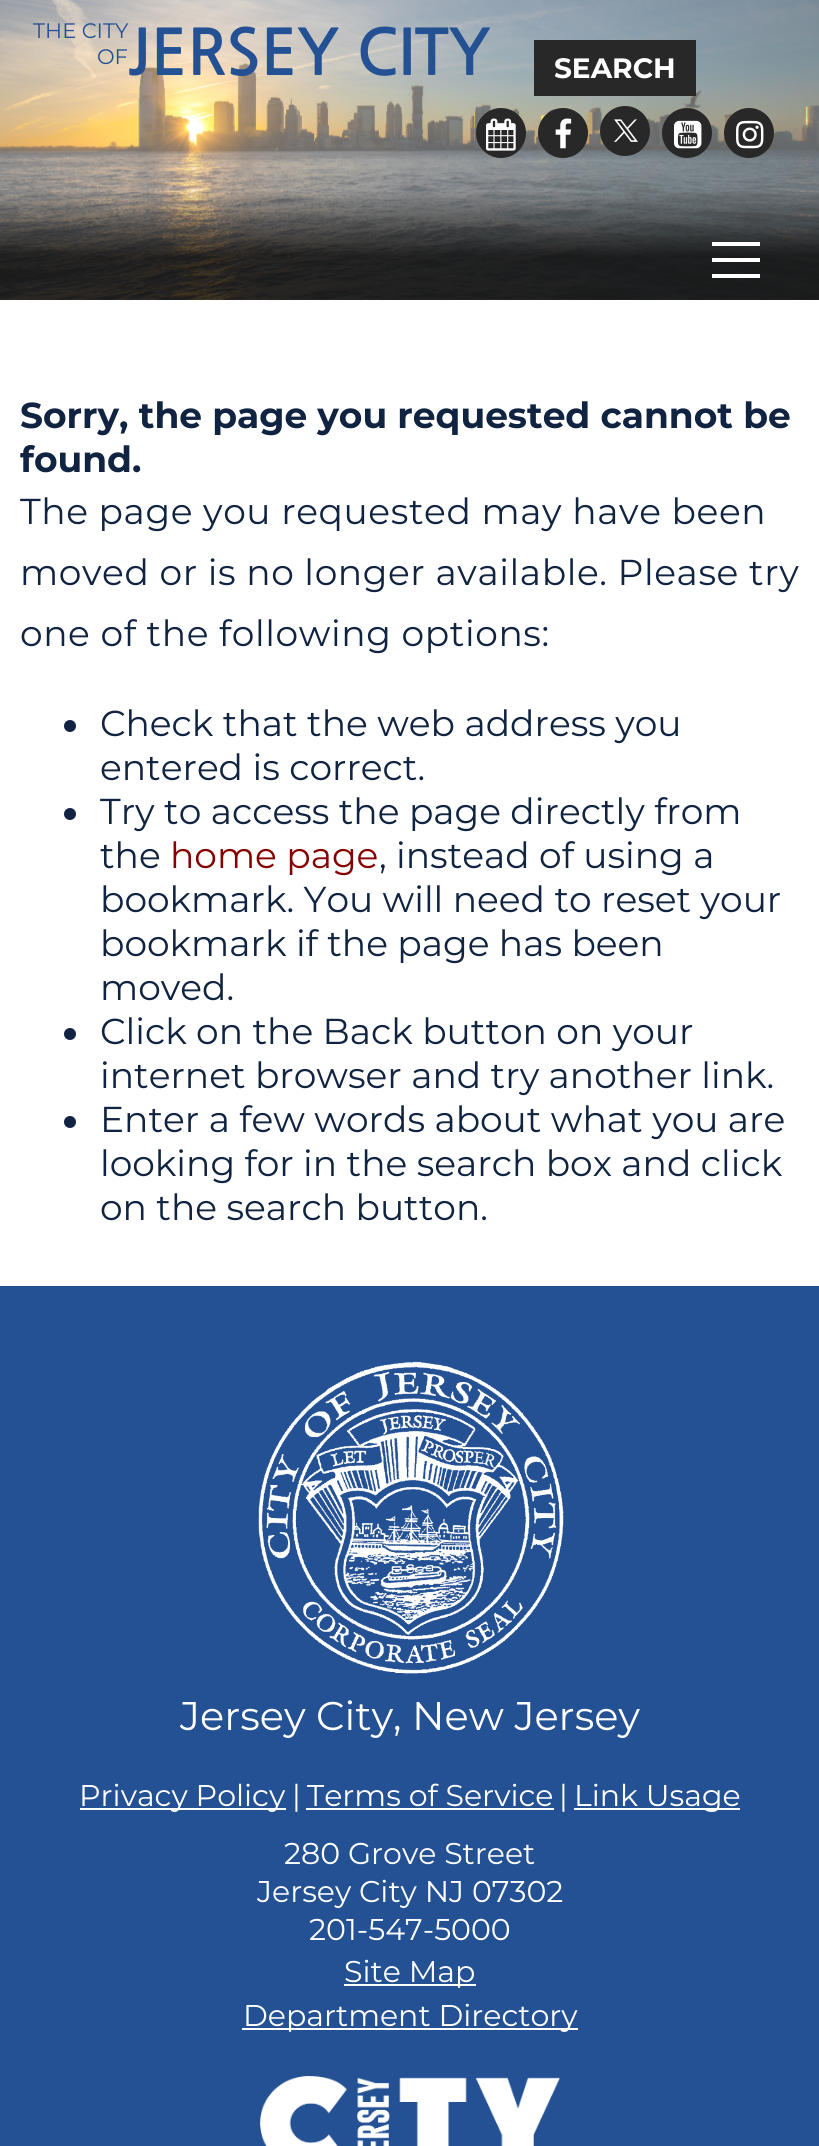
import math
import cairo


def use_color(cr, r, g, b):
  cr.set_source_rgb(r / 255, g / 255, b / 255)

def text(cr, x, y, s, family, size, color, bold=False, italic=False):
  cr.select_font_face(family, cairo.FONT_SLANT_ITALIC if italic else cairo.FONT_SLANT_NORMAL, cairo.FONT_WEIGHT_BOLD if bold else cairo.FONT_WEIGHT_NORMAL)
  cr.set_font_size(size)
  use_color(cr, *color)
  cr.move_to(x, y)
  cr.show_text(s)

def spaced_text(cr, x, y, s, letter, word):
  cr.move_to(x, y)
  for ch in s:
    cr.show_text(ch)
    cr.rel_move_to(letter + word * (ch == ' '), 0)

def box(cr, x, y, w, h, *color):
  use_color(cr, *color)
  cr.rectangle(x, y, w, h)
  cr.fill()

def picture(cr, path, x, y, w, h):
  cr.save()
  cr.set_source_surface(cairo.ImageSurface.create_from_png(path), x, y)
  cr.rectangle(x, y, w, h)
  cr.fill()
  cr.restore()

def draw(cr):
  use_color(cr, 255, 255, 255)
  cr.paint()
  picture(cr, "img_01.png", 0, 0, 819, 300)
  box(cr, 534, 40, 162, 56, 40, 40, 40)
  cr.arc(501, 133, 25, 0, 2 * math.pi)
  cr.fill()
  picture(cr, "img_02.png", 486, 118, 30, 33)
  cr.arc(563, 133, 25, 0, 2 * math.pi)
  cr.fill()
  picture(cr, "img_03.png", 555, 118, 17, 31)
  cr.arc(625, 131, 25, 0, 2 * math.pi)
  cr.fill()
  picture(cr, "img_04.png", 614, 119, 24, 23)
  cr.arc(687, 133, 25, 0, 2 * math.pi)
  cr.fill()
  picture(cr, "img_05.png", 674, 120, 28, 29)
  cr.arc(749, 133, 25, 0, 2 * math.pi)
  cr.fill()
  picture(cr, "img_06.png", 736, 120, 28, 29)
  gradient = cairo.LinearGradient(410, 190, 410, 300)
  gradient.add_color_stop_rgba(0, 0, 0, 0, 0)
  gradient.add_color_stop_rgba(0.6, 0, 0, 0, 0.75)
  gradient.add_color_stop_rgba(1, 0, 0, 0, 0.75)
  cr.set_source(gradient)
  cr.rectangle(0, 192, 819, 108)
  cr.fill()
  box(cr, 712, 258, 48, 4, 255, 255, 255)
  box(cr, 712, 242, 48, 4, 255, 255, 255)
  box(cr, 712, 274, 48, 4, 255, 255, 255)
  use_color(cr, 16, 36, 65)
  cr.arc(70, 726, 6, 0, 2 * math.pi)
  cr.fill()
  cr.arc(70, 814, 6, 0, 2 * math.pi)
  cr.fill()
  cr.arc(70, 1034, 6, 0, 2 * math.pi)
  cr.fill()
  cr.arc(70, 1122, 6, 0, 2 * math.pi)
  cr.fill()
  box(cr, 0, 1286, 819, 860, 36, 81, 147)
  picture(cr, "img_07.png", 258, 1361, 306, 313)
  box(cr, 80, 1808, 206, 2, 255, 255, 255)
  box(cr, 306, 1808, 248, 2, 255, 255, 255)
  box(cr, 574, 1808, 166, 2, 255, 255, 255)
  box(cr, 344, 1984, 132, 2, 255, 255, 255)
  box(cr, 242, 2028, 336, 2, 255, 255, 255)
  picture(cr, "img_08.png", 260, 2076, 300, 70)
  text(cr, 33, 38, "THE CITY", "Montserrat", 21, (36, 81, 147))
  text(cr, 97, 64, "OF", "Montserrat", 21, (36, 81, 147))
  text(cr, 128, 75, "JERSEY CITY", "NanumGothic", 63, (36, 81, 147), bold=True)
  text(cr, 554, 78, "SEARCH", "Montserrat", 28, (255, 255, 255), bold=True)
  text(cr, 20, 428, "Sorry, the page you requested cannot be", "Montserrat", 36, (16, 36, 65), bold=True)
  text(cr, 20, 472, "found.", "Montserrat", 36, (16, 36, 65), bold=True)
  cr.select_font_face("Montserrat")
  spaced_text(cr, 20, 524, "The page you requested may have been", 0.6, 0)
  spaced_text(cr, 20, 585, "moved or is no longer available. Please try", 0.6, 0)
  spaced_text(cr, 20, 646, "one of the following options:", 0.6, 0)
  text(cr, 100, 736, "Check that the web address you", "Montserrat", 36, (16, 36, 65))
  text(cr, 100, 780, "entered is correct.", "Montserrat", 36, (16, 36, 65))
  text(cr, 100, 824, "Try to access the page directly from", "Montserrat", 36, (16, 36, 65))
  text(cr, 100, 868, "the", "Montserrat", 36, (16, 36, 65))
  text(cr, 170, 868, "home page", "Montserrat", 36, (134, 0, 0))
  text(cr, 379, 868, ", instead of using a", "Montserrat", 36, (16, 36, 65))
  text(cr, 100, 912, "bookmark. You will need to reset your", "Montserrat", 36, (16, 36, 65))
  text(cr, 100, 956, "bookmark if the page has been", "Montserrat", 36, (16, 36, 65))
  text(cr, 100, 1000, "moved.", "Montserrat", 36, (16, 36, 65))
  text(cr, 100, 1044, "Click on the Back button on your", "Montserrat", 36, (16, 36, 65))
  text(cr, 100, 1088, "internet browser and try another link.", "Montserrat", 36, (16, 36, 65))
  text(cr, 100, 1132, "Enter a few words about what you are", "Montserrat", 36, (16, 36, 65))
  text(cr, 100, 1176, "looking for in the search box and click", "Montserrat", 36, (16, 36, 65))
  text(cr, 100, 1220, "on the search button.", "Montserrat", 36, (16, 36, 65))
  text(cr, 180, 1730, "Jersey City, New Jersey", "Montserrat", 40, (255, 255, 255))
  text(cr, 79, 1806, "Privacy Policy", "Montserrat", 30, (255, 255, 255))
  text(cr, 292, 1806, "|", "Montserrat", 30, (255, 255, 255))
  text(cr, 307, 1806, "Terms of Service", "Montserrat", 30, (255, 255, 255))
  text(cr, 559, 1806, "|", "Montserrat", 30, (255, 255, 255))
  text(cr, 574, 1806, "Link Usage", "Montserrat", 30, (255, 255, 255))
  text(cr, 284, 1864, "280 Grove Street", "Montserrat", 30, (255, 255, 255))
  text(cr, 257, 1902, "Jersey City NJ 07302", "Montserrat", 30, (255, 255, 255))
  text(cr, 309, 1940, "201-547-5000", "Montserrat", 30, (255, 255, 255))
  text(cr, 344, 1982, "Site Map", "Montserrat", 30, (255, 255, 255))
  text(cr, 243, 2026, "Department Directory", "Montserrat", 30, (255, 255, 255))


surface = cairo.ImageSurface(cairo.FORMAT_RGB24, 819, 2146)
cr = cairo.Context(surface)
options = cairo.FontOptions()
options.set_hint_metrics(cairo.HINT_METRICS_OFF)
options.set_hint_style(cairo.HINT_STYLE_NONE)
cr.set_font_options(options)
cr.set_miter_limit(4)
draw(cr)
surface.write_to_png("out.png")
